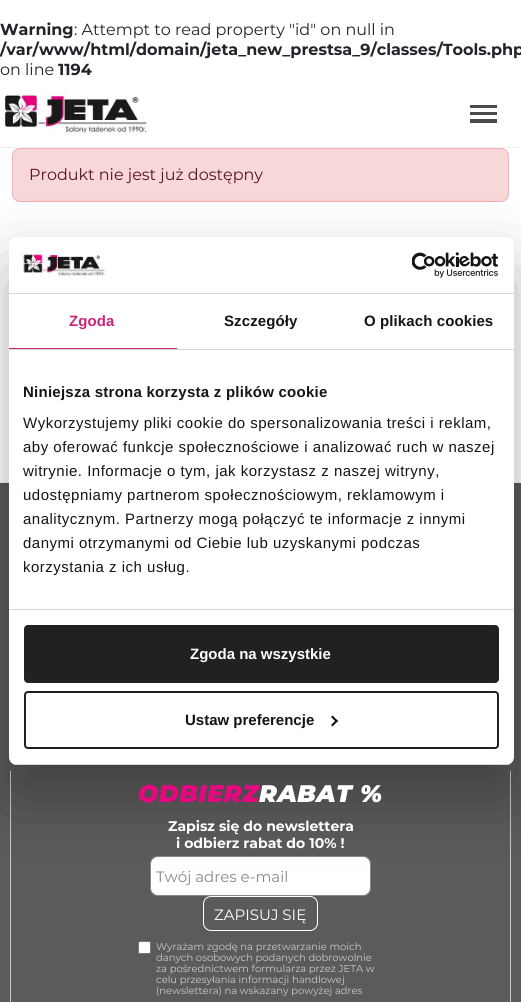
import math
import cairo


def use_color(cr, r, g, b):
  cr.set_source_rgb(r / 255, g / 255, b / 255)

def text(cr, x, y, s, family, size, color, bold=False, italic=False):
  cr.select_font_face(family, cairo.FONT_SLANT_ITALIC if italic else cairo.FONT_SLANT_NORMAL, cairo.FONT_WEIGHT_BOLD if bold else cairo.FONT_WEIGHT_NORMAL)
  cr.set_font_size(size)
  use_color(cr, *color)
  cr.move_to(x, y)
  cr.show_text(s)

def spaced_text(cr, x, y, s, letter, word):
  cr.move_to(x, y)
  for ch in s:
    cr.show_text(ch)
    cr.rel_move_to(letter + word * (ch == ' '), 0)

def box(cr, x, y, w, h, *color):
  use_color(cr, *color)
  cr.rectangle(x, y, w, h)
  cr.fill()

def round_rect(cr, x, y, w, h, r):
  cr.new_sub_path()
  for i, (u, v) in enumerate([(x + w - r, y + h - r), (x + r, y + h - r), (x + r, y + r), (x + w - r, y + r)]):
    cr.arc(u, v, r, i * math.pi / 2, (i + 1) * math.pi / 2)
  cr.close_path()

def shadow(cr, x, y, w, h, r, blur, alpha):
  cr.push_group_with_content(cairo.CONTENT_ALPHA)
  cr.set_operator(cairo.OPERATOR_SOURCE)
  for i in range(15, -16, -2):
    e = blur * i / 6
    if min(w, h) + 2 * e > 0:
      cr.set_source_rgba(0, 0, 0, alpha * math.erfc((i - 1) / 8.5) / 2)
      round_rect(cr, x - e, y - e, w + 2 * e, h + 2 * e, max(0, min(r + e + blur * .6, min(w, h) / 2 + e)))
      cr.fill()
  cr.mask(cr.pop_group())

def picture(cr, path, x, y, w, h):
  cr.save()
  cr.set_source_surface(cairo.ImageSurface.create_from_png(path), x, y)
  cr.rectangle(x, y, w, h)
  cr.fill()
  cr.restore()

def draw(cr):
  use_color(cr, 255, 255, 255)
  cr.paint()
  box(cr, 0, 147, 521, 1, 243, 243, 243)
  picture(cr, "img_01.png", 4, 90, 145, 44)
  box(cr, 470, 112, 27, 3, 73, 76, 79)
  box(cr, 470, 105, 27, 3, 73, 76, 79)
  box(cr, 470, 119, 27, 4, 73, 76, 79)
  use_color(cr, 248, 215, 218)
  round_rect(cr, 12.5, 148.5, 496, 53, 7.5)
  cr.fill_preserve()
  use_color(cr, 241, 174, 181)
  cr.set_line_width(1)
  cr.stroke()
  box(cr, 0, 483, 521, 519, 91, 91, 91)
  box(cr, 0, 482, 521, 1, 244, 244, 244)
  box(cr, 510, 771, 1, 231, 201, 203, 205)
  box(cr, 10, 771, 1, 231, 201, 203, 205)
  use_color(cr, 255, 255, 255)
  round_rect(cr, 150.5, 856.5, 220, 39, 7.5)
  cr.fill_preserve()
  use_color(cr, 129, 138, 145)
  cr.stroke()
  round_rect(cr, 203.5, 896.5, 114, 34, 7.5)
  use_color(cr, 255, 255, 255)
  cr.stroke()
  round_rect(cr, 138.5, 941.5, 12, 12, 1.5)
  cr.fill_preserve()
  use_color(cr, 118, 118, 118)
  cr.stroke()
  use_color(cr, 0, 0, 0)
  shadow(cr, 9, 269, 505, 528, 8, 34, 0.3)
  use_color(cr, 255, 255, 255)
  round_rect(cr, 9, 237, 505, 528, 8)
  cr.fill()
  box(cr, 9, 293, 505, 1, 214, 214, 214)
  picture(cr, "img_02.png", 23, 254, 82, 23)
  picture(cr, "img_03.png", 412, 252, 86, 26)
  box(cr, 9, 349, 505, 1, 214, 214, 214)
  box(cr, 9, 348, 168, 1, 202, 36, 125)
  box(cr, 9, 609, 505, 1, 214, 214, 214)
  cr.save()
  round_rect(cr, 9, 237, 505, 528, 8)
  cr.clip()
  box(cr, 9, 764, 505, 1, 214, 214, 214)
  cr.restore()
  use_color(cr, 33, 33, 33)
  round_rect(cr, 25, 626, 473, 56, 3)
  cr.fill_preserve()
  cr.set_line_width(2)
  cr.stroke()
  round_rect(cr, 25, 692, 473, 56, 3)
  cr.stroke()
  use_color(cr, 20, 20, 20)
  cr.new_path()
  cr.move_to(332.5, 715.5)
  cr.line_to(338, 721)
  cr.line_to(336.5, 722.5)
  cr.line_to(331, 717)
  cr.close_path()
  cr.fill()
  cr.new_path()
  cr.move_to(336.5, 719.5)
  cr.line_to(338, 721)
  cr.line_to(332.5, 726.5)
  cr.line_to(331, 725)
  cr.close_path()
  cr.fill()
  text(cr, 0, 35, "Warning", "Montserrat", 16, (33, 37, 41), bold=True)
  text(cr, 74, 35, ": Attempt to read property \"id\" on null in", "Montserrat", 16, (33, 37, 41))
  text(cr, 0, 55, "/var/www/html/domain/jeta_new_prestsa_9/classes/Tools.php", "Montserrat", 16, (33, 37, 41), bold=True)
  text(cr, 0, 75, "on line", "Montserrat", 16, (33, 37, 41))
  text(cr, 58, 75, "1194", "Montserrat", 16, (33, 37, 41), bold=True)
  text(cr, 29, 180, "Produkt nie jest już dostępny", "Montserrat", 16, (88, 21, 28))
  cr.select_font_face("Montserrat Black", cairo.FONT_SLANT_ITALIC)
  cr.set_font_size(24)
  use_color(cr, 229, 9, 127)
  spaced_text(cr, 138, 802, "ODBIERZ", 0.5, 0)
  use_color(cr, 255, 255, 255)
  spaced_text(cr, 259, 802, "RABAT %", 0.5, 0)
  text(cr, 168, 831, "Zapisz się do newslettera", "Montserrat", 14, (255, 255, 255), bold=True)
  text(cr, 176, 848, "i odbierz rabat do 10% !", "Montserrat", 14, (255, 255, 255), bold=True)
  text(cr, 156, 882, "Twój adres e-mail", "Montserrat", 15, (135, 137, 138))
  text(cr, 214, 920, "ZAPISUJ SIĘ", "Montserrat", 15, (255, 255, 255))
  text(cr, 156, 950, "Wyrażam zgodę na przetwarzanie moich", "Montserrat", 10, (201, 203, 205))
  text(cr, 156, 961, "danych osobowych podanych dobrowolnie", "Montserrat", 10, (201, 203, 205))
  text(cr, 156, 972, "za pośrednictwem formularza przez JETA w", "Montserrat", 10, (201, 203, 205))
  text(cr, 156, 983, "celu przesyłania informacji handlowej", "Montserrat", 10, (201, 203, 205))
  text(cr, 156, 994, "(newslettera) na wskazany powyżej adres", "Montserrat", 10, (201, 203, 205))
  cr.select_font_face("Liberation Sans", cairo.FONT_SLANT_NORMAL, cairo.FONT_WEIGHT_BOLD)
  cr.set_font_size(15)
  use_color(cr, 202, 36, 125)
  spaced_text(cr, 69, 326, "Zgoda", 0.1, 0)
  use_color(cr, 20, 20, 20)
  spaced_text(cr, 224, 326, "Szczegóły", 0.1, 0)
  spaced_text(cr, 364, 326, "O plikach cookies", 0.1, 0)
  spaced_text(cr, 23, 397, "Niniejsza strona korzysta z plików cookie", 0.25, 0)
  cr.select_font_face("Liberation Sans")
  spaced_text(cr, 23, 428, "Wykorzystujemy pliki cookie do spersonalizowania treści i reklam,", 0.5, 0)
  spaced_text(cr, 23, 452, "aby oferować funkcje społecznościowe i analizować ruch w naszej", 0.5, 0)
  spaced_text(cr, 23, 476, "witrynie. Informacje o tym, jak korzystasz z naszej witryny,", 0.5, 0)
  spaced_text(cr, 23, 500, "udostępniamy partnerom społecznościowym, reklamowym i", 0.5, 0)
  spaced_text(cr, 23, 524, "analitycznym. Partnerzy mogą połączyć te informacje z innymi", 0.5, 0)
  spaced_text(cr, 23, 548, "danymi otrzymanymi od Ciebie lub uzyskanymi podczas", 0.5, 0)
  spaced_text(cr, 23, 572, "korzystania z ich usług.", 0.5, 0)
  text(cr, 190, 659, "Zgoda na wszystkie", "Liberation Sans", 15, (255, 255, 255), bold=True)
  text(cr, 185, 725, "Ustaw preferencje", "Liberation Sans", 15, (20, 20, 20), bold=True)


surface = cairo.ImageSurface(cairo.FORMAT_RGB24, 521, 1002)
cr = cairo.Context(surface)
options = cairo.FontOptions()
options.set_hint_metrics(cairo.HINT_METRICS_OFF)
options.set_hint_style(cairo.HINT_STYLE_NONE)
cr.set_font_options(options)
cr.set_miter_limit(4)
draw(cr)
surface.write_to_png("out.png")
